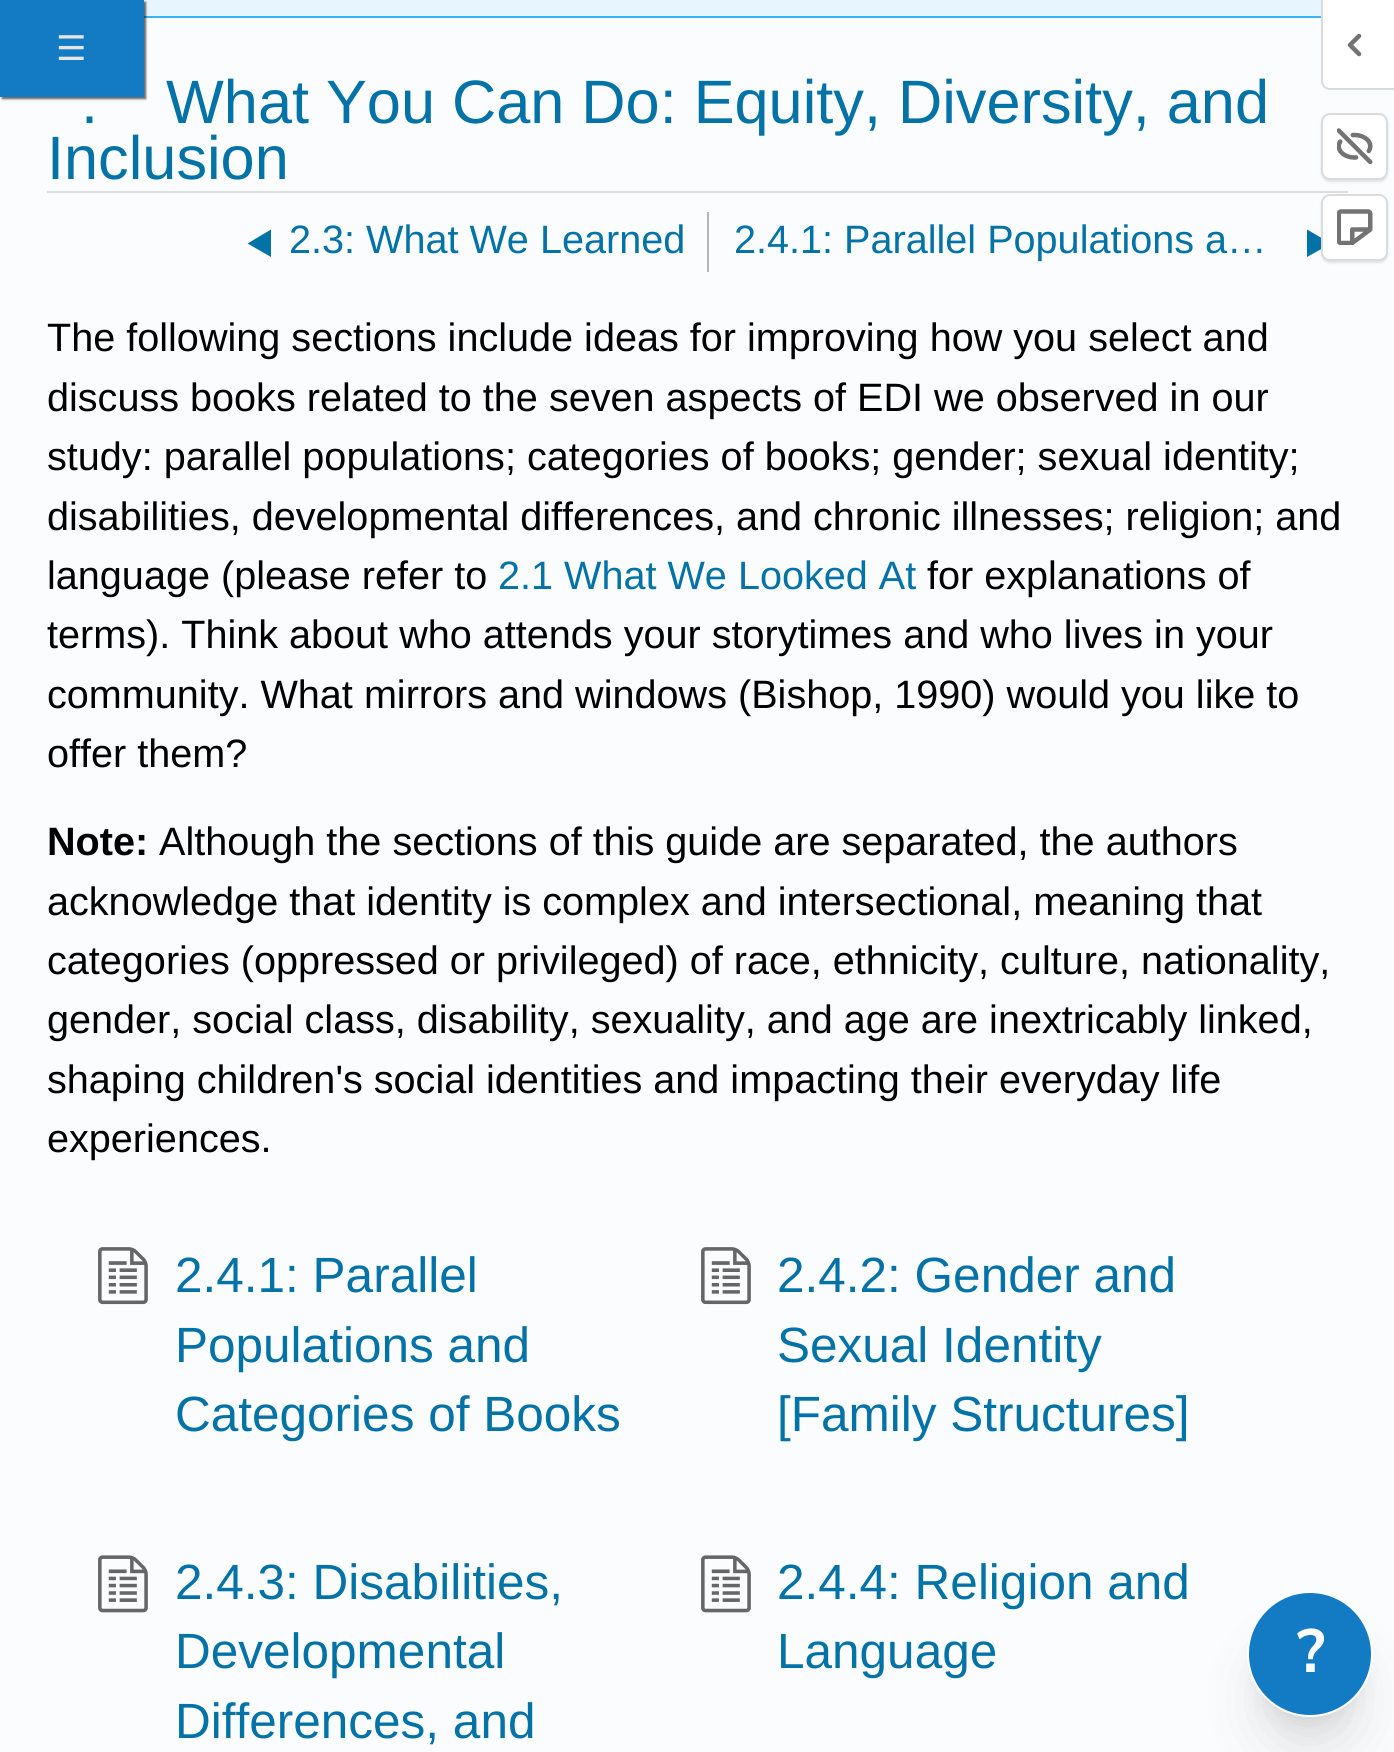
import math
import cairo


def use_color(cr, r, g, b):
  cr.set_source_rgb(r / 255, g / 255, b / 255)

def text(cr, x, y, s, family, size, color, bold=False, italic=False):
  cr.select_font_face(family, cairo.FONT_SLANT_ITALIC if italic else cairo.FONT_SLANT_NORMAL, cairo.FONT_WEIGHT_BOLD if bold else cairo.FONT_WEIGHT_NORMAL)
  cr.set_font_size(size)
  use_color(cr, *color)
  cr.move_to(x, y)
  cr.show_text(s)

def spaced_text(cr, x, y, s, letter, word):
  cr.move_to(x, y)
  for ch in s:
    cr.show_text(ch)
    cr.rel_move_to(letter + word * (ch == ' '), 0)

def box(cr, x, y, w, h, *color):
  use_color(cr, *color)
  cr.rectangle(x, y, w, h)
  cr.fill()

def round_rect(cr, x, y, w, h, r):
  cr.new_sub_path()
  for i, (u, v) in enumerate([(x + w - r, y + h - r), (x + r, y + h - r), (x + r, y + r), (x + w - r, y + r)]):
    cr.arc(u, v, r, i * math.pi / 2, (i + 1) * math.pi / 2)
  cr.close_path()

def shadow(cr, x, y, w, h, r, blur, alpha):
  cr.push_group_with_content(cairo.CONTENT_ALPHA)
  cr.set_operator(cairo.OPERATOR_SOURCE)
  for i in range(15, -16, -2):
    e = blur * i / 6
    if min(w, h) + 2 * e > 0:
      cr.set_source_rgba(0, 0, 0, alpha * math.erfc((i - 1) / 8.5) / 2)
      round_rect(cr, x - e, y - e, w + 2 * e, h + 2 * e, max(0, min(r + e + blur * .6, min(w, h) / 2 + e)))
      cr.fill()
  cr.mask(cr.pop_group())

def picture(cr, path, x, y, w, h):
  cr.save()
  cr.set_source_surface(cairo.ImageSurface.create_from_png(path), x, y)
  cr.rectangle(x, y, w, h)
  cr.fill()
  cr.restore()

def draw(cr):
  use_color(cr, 251, 252, 254)
  cr.paint()
  box(cr, 144, 0, 1177, 16, 230, 245, 254)
  box(cr, 144, 16, 1177, 2, 54, 181, 246)
  use_color(cr, 0, 0, 0)
  shadow(cr, 2, 2, 144, 97, 0, 1, 0.6)
  box(cr, 0, 0, 144, 97, 18, 123, 196)
  use_color(cr, 255, 255, 255)
  cr.new_path()
  cr.move_to(1323, 0)
  cr.line_to(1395, 0)
  cr.line_to(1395, 88)
  cr.line_to(1330, 88)
  cr.curve_to(1326, 88, 1323, 85, 1323, 81)
  cr.close_path()
  cr.fill()
  use_color(cr, 219, 219, 219)
  cr.set_fill_rule(cairo.FILL_RULE_EVEN_ODD)
  cr.new_path()
  cr.move_to(1321, 0)
  cr.line_to(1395, 0)
  cr.line_to(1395, 90)
  cr.line_to(1330, 90)
  cr.curve_to(1325, 90, 1321, 86, 1321, 81)
  cr.close_path()
  cr.move_to(1323, 0)
  cr.line_to(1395, 0)
  cr.line_to(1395, 88)
  cr.line_to(1330, 88)
  cr.curve_to(1326, 88, 1323, 85, 1323, 81)
  cr.close_path()
  cr.fill()
  picture(cr, "img_01.png", 1347, 33, 15, 24)
  use_color(cr, 0, 0, 0)
  shadow(cr, 1321, 115, 67, 67, 9, 1, 0.1)
  use_color(cr, 255, 255, 255)
  round_rect(cr, 1322, 114, 65, 65, 8)
  cr.fill_preserve()
  use_color(cr, 219, 219, 219)
  cr.stroke()
  picture(cr, "img_02.png", 1337, 128, 36, 36)
  box(cr, 47, 191, 1301, 2, 221, 221, 221)
  use_color(cr, 3, 114, 166)
  cr.set_fill_rule(cairo.FILL_RULE_WINDING)
  cr.new_path()
  cr.move_to(1307, 229.5)
  cr.line_to(1307, 257)
  cr.line_to(1331, 243.5)
  cr.close_path()
  cr.fill()
  use_color(cr, 0, 0, 0)
  shadow(cr, 1321, 196, 67, 67, 9, 1, 0.1)
  use_color(cr, 255, 255, 255)
  round_rect(cr, 1322, 195, 65, 65, 8)
  cr.fill_preserve()
  use_color(cr, 219, 219, 219)
  cr.stroke()
  picture(cr, "img_03.png", 1337, 209, 36, 36)
  box(cr, 707, 212, 2, 60, 180, 180, 180)
  use_color(cr, 3, 114, 166)
  cr.new_path()
  cr.move_to(271, 229.5)
  cr.line_to(271, 257)
  cr.line_to(247.5, 243.5)
  cr.close_path()
  cr.fill()
  picture(cr, "img_04.png", 98, 1247, 50, 58)
  picture(cr, "img_04.png", 701, 1247, 50, 58)
  picture(cr, "img_05.png", 98, 1555, 50, 58)
  picture(cr, "img_05.png", 701, 1555, 50, 58)
  use_color(cr, 0, 0, 0)
  shadow(cr, 1260, 1622, 99, 99, 49.5, 11, 0.1)
  shadow(cr, 1258, 1647, 103, 104, 51.5, 28, 0.1)
  use_color(cr, 18, 123, 196)
  cr.arc(1310, 1654, 62, 0, 2 * math.pi)
  cr.fill_preserve()
  use_color(cr, 255, 255, 255)
  cr.stroke()
  cr.select_font_face("DejaVu Sans")
  cr.set_font_size(34)
  use_color(cr, 229, 229, 229)
  spaced_text(cr, 56, 60, "☰", 1, 0)
  text(cr, 81, 123, ".", "Liberation Sans", 61.25, (3, 114, 166))
  text(cr, 166, 123, "What You Can Do: Equity, Diversity, and", "Liberation Sans", 61.25, (3, 114, 166))
  text(cr, 47, 179, "Inclusion", "Liberation Sans", 61.25, (3, 114, 166))
  text(cr, 289, 253, "2.3: What We Learned", "Liberation Sans", 39.6, (3, 114, 166))
  text(cr, 734, 253, "2.4.1: Parallel Populations a…", "Liberation Sans", 39.6, (3, 114, 166))
  text(cr, 47, 351, "The following sections include ideas for improving how you select and", "Liberation Sans", 39.6, (0, 0, 0))
  text(cr, 47, 411, "discuss books related to the seven aspects of EDI we observed in our", "Liberation Sans", 39.6, (0, 0, 0))
  text(cr, 47, 470, "study: parallel populations; categories of books; gender; sexual identity;", "Liberation Sans", 39.6, (0, 0, 0))
  text(cr, 47, 530, "disabilities, developmental differences, and chronic illnesses; religion; and", "Liberation Sans", 39.6, (0, 0, 0))
  text(cr, 47, 589, "language (please refer to", "Liberation Sans", 39.6, (0, 0, 0))
  text(cr, 498, 589, "2.1 What We Looked At", "Liberation Sans", 39.6, (3, 114, 166))
  text(cr, 927, 589, "for explanations of", "Liberation Sans", 39.6, (0, 0, 0))
  text(cr, 47, 648, "terms). Think about who attends your storytimes and who lives in your", "Liberation Sans", 39.6, (0, 0, 0))
  text(cr, 47, 708, "community. What mirrors and windows (Bishop, 1990) would you like to", "Liberation Sans", 39.6, (0, 0, 0))
  text(cr, 47, 767, "offer them?", "Liberation Sans", 39.6, (0, 0, 0))
  text(cr, 47, 855, "Note:", "Liberation Sans", 39.6, (0, 0, 0), bold=True)
  text(cr, 159, 855, "Although the sections of this guide are separated, the authors", "Liberation Sans", 39.6, (0, 0, 0))
  text(cr, 47, 915, "acknowledge that identity is complex and intersectional, meaning that", "Liberation Sans", 39.6, (0, 0, 0))
  text(cr, 47, 974, "categories (oppressed or privileged) of race, ethnicity, culture, nationality,", "Liberation Sans", 39.6, (0, 0, 0))
  text(cr, 47, 1033, "gender, social class, disability, sexuality, and age are inextricably linked,", "Liberation Sans", 39.6, (0, 0, 0))
  text(cr, 47, 1093, "shaping children's social identities and impacting their everyday life", "Liberation Sans", 39.6, (0, 0, 0))
  text(cr, 47, 1152, "experiences.", "Liberation Sans", 39.6, (0, 0, 0))
  text(cr, 175, 1292, "2.4.1: Parallel", "Liberation Sans", 49.5, (3, 114, 166))
  text(cr, 175, 1362, "Populations and", "Liberation Sans", 49.5, (3, 114, 166))
  text(cr, 175, 1431, "Categories of Books", "Liberation Sans", 49.5, (3, 114, 166))
  text(cr, 777, 1292, "2.4.2: Gender and", "Liberation Sans", 49.5, (3, 114, 166))
  text(cr, 777, 1362, "Sexual Identity", "Liberation Sans", 49.5, (3, 114, 166))
  text(cr, 777, 1431, "[Family Structures]", "Liberation Sans", 49.5, (3, 114, 166))
  text(cr, 175, 1599, "2.4.3: Disabilities,", "Liberation Sans", 49.5, (3, 114, 166))
  text(cr, 175, 1668, "Developmental", "Liberation Sans", 49.5, (3, 114, 166))
  text(cr, 175, 1738, "Differences, and", "Liberation Sans", 49.5, (3, 114, 166))
  text(cr, 777, 1599, "2.4.4: Religion and", "Liberation Sans", 49.5, (3, 114, 166))
  text(cr, 777, 1668, "Language", "Liberation Sans", 49.5, (3, 114, 166))
  text(cr, 1297, 1672, "?", "Nunito Sans", 61, (255, 255, 255), bold=True)


surface = cairo.ImageSurface(cairo.FORMAT_RGB24, 1394, 1752)
cr = cairo.Context(surface)
options = cairo.FontOptions()
options.set_hint_metrics(cairo.HINT_METRICS_OFF)
options.set_hint_style(cairo.HINT_STYLE_NONE)
cr.set_font_options(options)
cr.set_miter_limit(4)
draw(cr)
surface.write_to_png("out.png")
